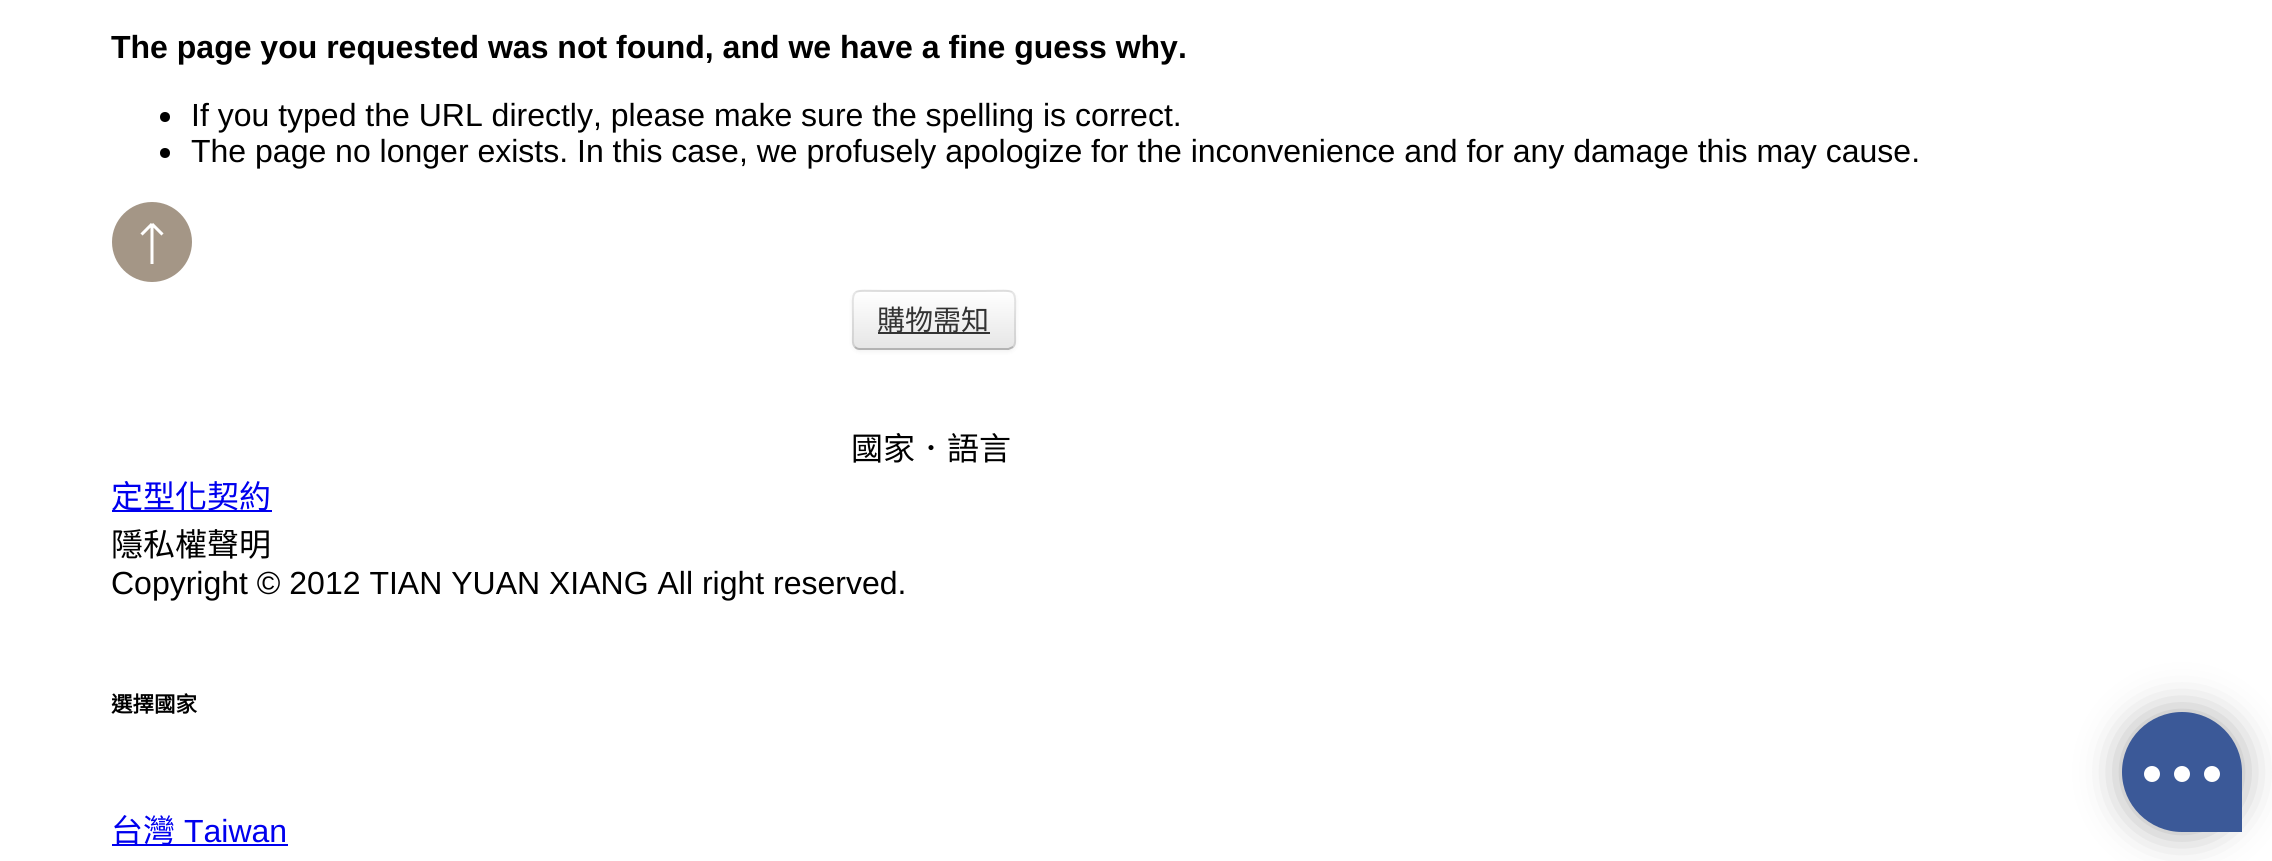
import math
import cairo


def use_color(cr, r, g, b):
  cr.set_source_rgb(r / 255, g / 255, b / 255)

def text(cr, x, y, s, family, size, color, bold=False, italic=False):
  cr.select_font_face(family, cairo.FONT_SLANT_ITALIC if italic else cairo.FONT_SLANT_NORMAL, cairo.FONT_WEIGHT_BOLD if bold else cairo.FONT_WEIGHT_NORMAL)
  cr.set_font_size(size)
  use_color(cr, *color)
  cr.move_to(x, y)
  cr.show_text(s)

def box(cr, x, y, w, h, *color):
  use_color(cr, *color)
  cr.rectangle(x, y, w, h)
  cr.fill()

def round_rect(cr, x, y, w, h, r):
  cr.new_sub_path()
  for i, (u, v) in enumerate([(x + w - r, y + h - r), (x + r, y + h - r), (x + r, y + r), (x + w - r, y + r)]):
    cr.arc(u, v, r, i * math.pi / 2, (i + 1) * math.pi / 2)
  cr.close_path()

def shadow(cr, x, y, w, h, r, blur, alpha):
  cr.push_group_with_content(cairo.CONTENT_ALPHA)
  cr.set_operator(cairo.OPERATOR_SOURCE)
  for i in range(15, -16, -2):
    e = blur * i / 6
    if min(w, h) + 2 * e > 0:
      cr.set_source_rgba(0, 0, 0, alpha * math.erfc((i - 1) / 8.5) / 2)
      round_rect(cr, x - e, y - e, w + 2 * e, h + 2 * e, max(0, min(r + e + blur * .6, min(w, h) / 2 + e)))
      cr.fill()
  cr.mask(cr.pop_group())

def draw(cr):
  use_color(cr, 255, 255, 255)
  cr.paint()
  use_color(cr, 0, 0, 0)
  cr.arc(165, 117, 5, 0, 2 * math.pi)
  cr.fill()
  cr.arc(165, 153, 5, 0, 2 * math.pi)
  cr.fill()
  use_color(cr, 164, 150, 134)
  cr.arc(152, 242, 40, 0, 2 * math.pi)
  cr.fill()
  cr.new_path()
  cr.move_to(152, 264)
  cr.line_to(152, 224)
  cr.move_to(152, 224)
  cr.line_to(162.5, 234.5)
  cr.move_to(152, 224)
  cr.line_to(141.5, 234.5)
  use_color(cr, 255, 255, 255)
  cr.set_line_width(3)
  cr.stroke()
  use_color(cr, 0, 0, 0)
  shadow(cr, 852, 292, 164, 60, 8, 2, 0.05)
  use_color(cr, 245, 245, 245)
  round_rect(cr, 852, 290, 164, 60, 8)
  cr.fill()
  cr.save()
  round_rect(cr, 852, 290, 164, 60, 8)
  cr.clip()
  gradient = cairo.LinearGradient(934, 292, 934, 348)
  gradient.add_color_stop_rgba(0, 1, 1, 1, 1)
  gradient.add_color_stop_rgba(1, 0.902, 0.902, 0.902, 1)
  cr.set_source(gradient)
  cr.rectangle(852, 292, 164, 56)
  cr.fill()
  cr.restore()
  cr.new_path()
  cr.move_to(1013, 347)
  cr.line_to(1008.5, 349)
  cr.line_to(859.5, 349)
  cr.curve_to(857.5, 349, 856, 348, 855, 347)
  use_color(cr, 179, 179, 179)
  cr.set_line_width(2)
  cr.stroke()
  cr.new_path()
  cr.move_to(855, 347)
  cr.curve_to(852, 344, 853, 338.5, 853, 334.5)
  cr.line_to(853, 320)
  cr.curve_to(853, 286, 848.5, 291, 884.5, 291)
  cr.line_to(983.5, 291)
  cr.curve_to(1019.5, 291, 1015, 286, 1015, 320)
  cr.line_to(1015, 334.5)
  cr.curve_to(1015, 338.5, 1016, 344, 1013, 347)
  cr.set_source_rgba(0, 0, 0, 0.1)
  cr.stroke()
  box(cr, 878, 332, 112, 2, 51, 51, 51)
  box(cr, 112, 510, 160, 2, 0, 0, 238)
  box(cr, 112, 844, 176, 2, 0, 0, 238)
  use_color(cr, 119, 119, 119)
  shadow(cr, 2122, 712, 120, 120, 60, 20, 0.64)
  use_color(cr, 59, 89, 152)
  cr.new_path()
  cr.move_to(2182, 712)
  cr.curve_to(2215, 712, 2242, 739, 2242, 772)
  cr.line_to(2242, 832)
  cr.line_to(2182, 832)
  cr.curve_to(2149, 832, 2122, 805, 2122, 772)
  cr.curve_to(2122, 739, 2149, 712, 2182, 712)
  cr.close_path()
  cr.fill()
  use_color(cr, 255, 255, 255)
  cr.arc(2152, 774, 8, 0, 2 * math.pi)
  cr.fill()
  cr.arc(2182, 774, 8, 0, 2 * math.pi)
  cr.fill()
  cr.arc(2212, 774, 8, 0, 2 * math.pi)
  cr.fill()
  text(cr, 111, 58, "The page you requested was not found, and we have a fine guess why.", "Liberation Sans", 32, (0, 0, 0), bold=True)
  text(cr, 191, 126, "If you typed the URL directly, please make sure the spelling is correct.", "Liberation Sans", 32, (0, 0, 0))
  text(cr, 191, 162, "The page no longer exists. In this case, we profusely apologize for the inconvenience and for any damage this may cause.", "Liberation Sans", 32, (0, 0, 0))
  text(cr, 877, 330, "購物需知", "Noto Sans CJK TC", 28, (51, 51, 51))
  text(cr, 851, 460, "國家．語言", "Noto Sans CJK TC", 32, (0, 0, 0))
  text(cr, 111, 508, "定型化契約", "Noto Sans CJK TC", 32, (0, 0, 238))
  text(cr, 111, 556, "隱私權聲明", "Noto Sans CJK TC", 32, (0, 0, 0))
  text(cr, 111, 594, "Copyright © 2012 TIAN YUAN XIANG All right reserved.", "Liberation Sans", 32, (0, 0, 0))
  text(cr, 111, 712, "選擇國家", "Noto Sans CJK TC", 21.5, (0, 0, 0), bold=True)
  text(cr, 111, 842, "台灣", "Noto Sans CJK TC", 32, (0, 0, 238))
  text(cr, 184, 842, "Taiwan", "Liberation Sans", 32, (0, 0, 238))


surface = cairo.ImageSurface(cairo.FORMAT_RGB24, 2272, 861)
cr = cairo.Context(surface)
options = cairo.FontOptions()
options.set_hint_metrics(cairo.HINT_METRICS_OFF)
options.set_hint_style(cairo.HINT_STYLE_NONE)
cr.set_font_options(options)
cr.set_miter_limit(4)
draw(cr)
surface.write_to_png("out.png")
